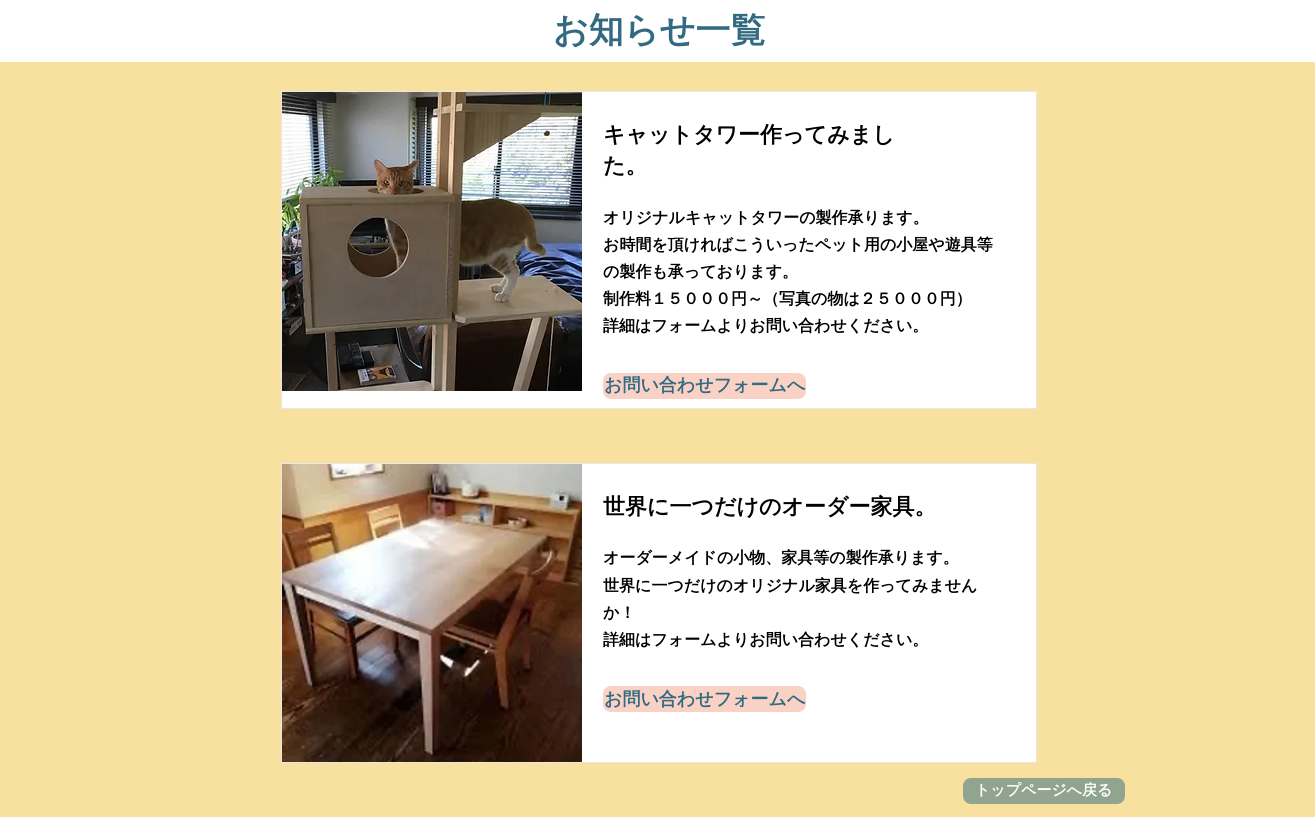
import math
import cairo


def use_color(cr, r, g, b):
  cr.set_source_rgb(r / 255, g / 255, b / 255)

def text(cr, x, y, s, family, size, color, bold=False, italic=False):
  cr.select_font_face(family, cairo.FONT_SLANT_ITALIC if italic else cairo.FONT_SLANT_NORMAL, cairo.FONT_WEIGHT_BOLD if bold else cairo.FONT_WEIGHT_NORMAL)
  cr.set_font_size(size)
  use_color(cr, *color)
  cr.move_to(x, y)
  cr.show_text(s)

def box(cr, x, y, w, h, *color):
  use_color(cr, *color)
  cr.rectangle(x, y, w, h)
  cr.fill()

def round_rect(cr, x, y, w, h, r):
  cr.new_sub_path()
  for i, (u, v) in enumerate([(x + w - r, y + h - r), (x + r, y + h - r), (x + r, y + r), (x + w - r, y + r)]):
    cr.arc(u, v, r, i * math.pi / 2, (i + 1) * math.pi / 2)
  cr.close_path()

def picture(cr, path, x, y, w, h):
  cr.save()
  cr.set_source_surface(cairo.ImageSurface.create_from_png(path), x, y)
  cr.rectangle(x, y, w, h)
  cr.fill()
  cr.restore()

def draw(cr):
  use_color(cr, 255, 255, 255)
  cr.paint()
  box(cr, 0, 62, 1315, 755, 248, 225, 159)
  cr.rectangle(281.5, 91.5, 755, 317)
  use_color(cr, 232, 230, 230)
  cr.set_line_width(1)
  cr.stroke()
  box(cr, 282, 92, 754, 316, 255, 255, 255)
  picture(cr, "img_01.png", 282, 92, 300, 299)
  use_color(cr, 250, 210, 197)
  round_rect(cr, 603, 373, 203, 26, 8)
  cr.fill()
  cr.rectangle(281.5, 463.5, 755, 299)
  use_color(cr, 232, 230, 230)
  cr.stroke()
  box(cr, 582, 464, 454, 298, 255, 255, 255)
  picture(cr, "img_02.png", 282, 464, 300, 298)
  use_color(cr, 250, 210, 197)
  round_rect(cr, 603, 686, 203, 26, 8)
  cr.fill()
  use_color(cr, 145, 164, 143)
  round_rect(cr, 963, 778, 162, 26, 8)
  cr.fill()
  text(cr, 553, 42, "お知らせ一覧", "WenQuanYi Zen Hei", 35, (50, 107, 129), bold=True)
  text(cr, 603, 142, "キャットタワー作ってみまし", "WenQuanYi Zen Hei", 22, (0, 0, 0), bold=True)
  text(cr, 603, 173, "た。", "WenQuanYi Zen Hei", 22, (0, 0, 0), bold=True)
  text(cr, 603, 223, "オリジナルキャットタワーの製作承ります。", "WenQuanYi Zen Hei", 16, (0, 0, 0), bold=True)
  text(cr, 603, 250, "お時間を頂ければこういったペット用の小屋や遊具等", "WenQuanYi Zen Hei", 16, (0, 0, 0), bold=True)
  text(cr, 603, 277, "の製作も承っております。", "WenQuanYi Zen Hei", 16, (0, 0, 0), bold=True)
  text(cr, 603, 304, "制作料１５０００円～（写真の物は２５０００円）", "WenQuanYi Zen Hei", 16, (0, 0, 0), bold=True)
  text(cr, 603, 331, "詳細はフォームよりお問い合わせください。", "WenQuanYi Zen Hei", 16, (0, 0, 0), bold=True)
  text(cr, 604, 391, "お問い合わせフォームへ", "WenQuanYi Zen Hei", 18, (50, 107, 129), bold=True)
  text(cr, 603, 514, "世界に一つだけのオーダー家具。", "WenQuanYi Zen Hei", 22, (0, 0, 0), bold=True)
  text(cr, 603, 563, "オーダーメイドの小物、家具等の製作承ります。", "WenQuanYi Zen Hei", 16, (0, 0, 0), bold=True)
  text(cr, 603, 591, "世界に一つだけのオリジナル家具を作ってみません", "WenQuanYi Zen Hei", 16, (0, 0, 0), bold=True)
  text(cr, 603, 618, "か！", "WenQuanYi Zen Hei", 16, (0, 0, 0), bold=True)
  text(cr, 603, 645, "詳細はフォームよりお問い合わせください。", "WenQuanYi Zen Hei", 16, (0, 0, 0), bold=True)
  text(cr, 604, 705, "お問い合わせフォームへ", "WenQuanYi Zen Hei", 18, (50, 107, 129), bold=True)
  text(cr, 975, 795, "トップページへ戻る", "WenQuanYi Zen Hei", 15, (255, 255, 255), bold=True)


surface = cairo.ImageSurface(cairo.FORMAT_RGB24, 1315, 831)
cr = cairo.Context(surface)
options = cairo.FontOptions()
options.set_hint_metrics(cairo.HINT_METRICS_OFF)
options.set_hint_style(cairo.HINT_STYLE_NONE)
cr.set_font_options(options)
cr.set_miter_limit(4)
draw(cr)
surface.write_to_png("out.png")
